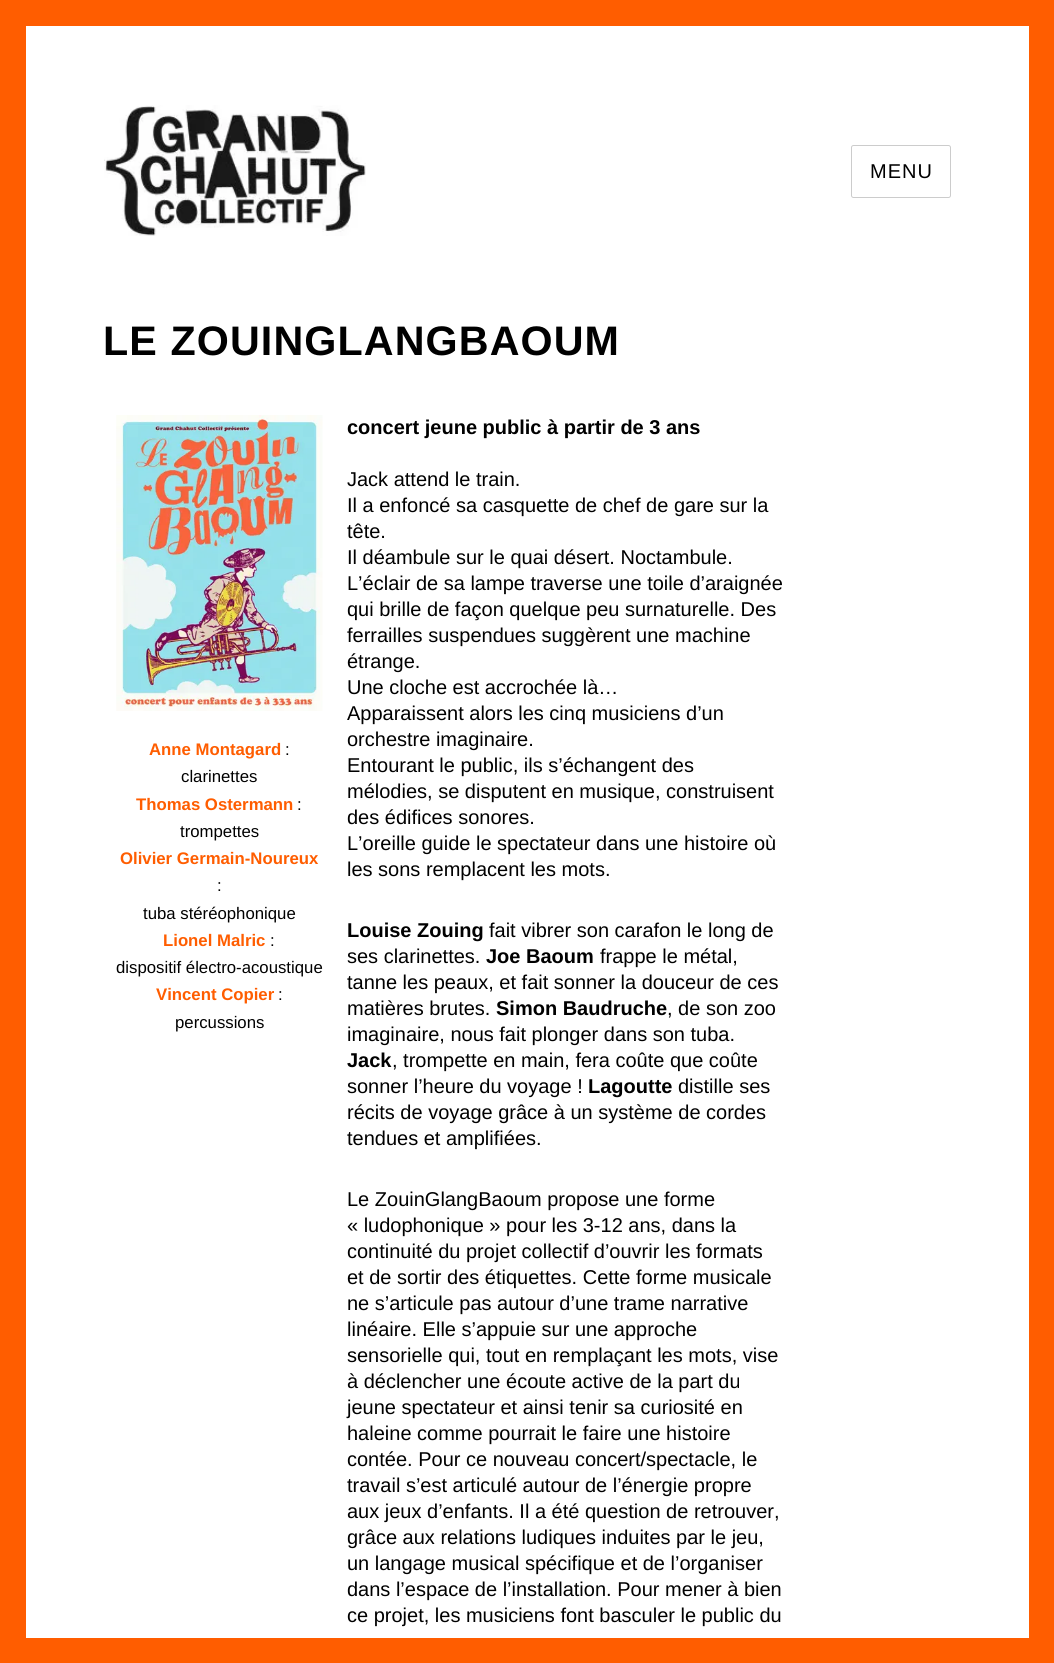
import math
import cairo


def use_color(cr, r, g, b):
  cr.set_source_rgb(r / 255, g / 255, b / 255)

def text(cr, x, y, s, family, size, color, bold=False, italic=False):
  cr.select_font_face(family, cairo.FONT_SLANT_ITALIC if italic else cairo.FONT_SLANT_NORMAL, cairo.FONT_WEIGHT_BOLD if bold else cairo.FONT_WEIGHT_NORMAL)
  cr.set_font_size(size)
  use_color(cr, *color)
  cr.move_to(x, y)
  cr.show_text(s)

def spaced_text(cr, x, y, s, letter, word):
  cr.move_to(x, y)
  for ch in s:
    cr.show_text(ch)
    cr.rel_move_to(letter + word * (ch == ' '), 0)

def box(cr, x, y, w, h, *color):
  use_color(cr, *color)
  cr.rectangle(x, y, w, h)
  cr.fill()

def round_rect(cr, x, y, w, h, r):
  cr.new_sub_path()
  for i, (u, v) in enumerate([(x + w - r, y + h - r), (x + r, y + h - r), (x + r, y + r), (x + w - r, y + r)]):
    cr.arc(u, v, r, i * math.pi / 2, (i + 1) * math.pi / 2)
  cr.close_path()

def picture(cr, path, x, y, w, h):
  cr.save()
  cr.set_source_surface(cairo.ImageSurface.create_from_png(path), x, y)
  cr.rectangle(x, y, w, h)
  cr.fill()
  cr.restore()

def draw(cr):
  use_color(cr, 255, 93, 0)
  cr.paint()
  box(cr, 26, 26, 1003, 1612, 255, 255, 255)
  picture(cr, "img_01.png", 104, 105, 262, 131)
  round_rect(cr, 851.5, 145.5, 99, 52, 2)
  use_color(cr, 204, 204, 204)
  cr.set_line_width(1)
  cr.stroke()
  picture(cr, "img_02.png", 116, 415, 207, 296)
  cr.select_font_face("Liberation Sans")
  cr.set_font_size(20)
  use_color(cr, 0, 0, 0)
  spaced_text(cr, 870, 178, "MENU", 1, 0)
  cr.select_font_face("Liberation Sans", cairo.FONT_SLANT_NORMAL, cairo.FONT_WEIGHT_BOLD)
  cr.set_font_size(41.25)
  spaced_text(cr, 103, 355, "LE ZOUINGLANGBAOUM", 1.1, 0)
  text(cr, 149, 755, "Anne Montagard", "Liberation Sans", 16.75, (255, 93, 0), bold=True)
  text(cr, 285, 755, ":", "Liberation Sans", 16.75, (0, 0, 0))
  text(cr, 181, 782, "clarinettes", "Liberation Sans", 16.75, (0, 0, 0))
  text(cr, 136, 810, "Thomas Ostermann", "Liberation Sans", 16.75, (255, 93, 0), bold=True)
  text(cr, 297, 810, ":", "Liberation Sans", 16.75, (0, 0, 0))
  text(cr, 180, 837, "trompettes", "Liberation Sans", 16.75, (0, 0, 0))
  text(cr, 120, 864, "Olivier Germain-Noureux", "Liberation Sans", 16.75, (255, 93, 0), bold=True)
  text(cr, 217, 891, ":", "Liberation Sans", 16.75, (0, 0, 0))
  text(cr, 143, 919, "tuba stéréophonique", "Liberation Sans", 16.75, (0, 0, 0))
  text(cr, 163, 946, "Lionel Malric", "Liberation Sans", 16.75, (255, 93, 0), bold=True)
  text(cr, 270, 946, ":", "Liberation Sans", 16.75, (0, 0, 0))
  text(cr, 116, 973, "dispositif électro-acoustique", "Liberation Sans", 16.75, (0, 0, 0))
  text(cr, 156, 1000, "Vincent Copier", "Liberation Sans", 16.75, (255, 93, 0), bold=True)
  text(cr, 278, 1000, ":", "Liberation Sans", 16.75, (0, 0, 0))
  text(cr, 175, 1028, "percussions", "Liberation Sans", 16.75, (0, 0, 0))
  text(cr, 347, 434, "concert jeune public à partir de 3 ans", "Liberation Sans", 20, (0, 0, 0), bold=True)
  text(cr, 347, 486, "Jack attend le train.", "Liberation Sans", 20, (0, 0, 0))
  text(cr, 347, 512, "Il a enfoncé sa casquette de chef de gare sur la", "Liberation Sans", 20, (0, 0, 0))
  text(cr, 347, 538, "tête.", "Liberation Sans", 20, (0, 0, 0))
  text(cr, 347, 564, "Il déambule sur le quai désert. Noctambule.", "Liberation Sans", 20, (0, 0, 0))
  text(cr, 347, 590, "L’éclair de sa lampe traverse une toile d’araignée", "Liberation Sans", 20, (0, 0, 0))
  text(cr, 347, 616, "qui brille de façon quelque peu surnaturelle. Des", "Liberation Sans", 20, (0, 0, 0))
  text(cr, 347, 642, "ferrailles suspendues suggèrent une machine", "Liberation Sans", 20, (0, 0, 0))
  text(cr, 347, 668, "étrange.", "Liberation Sans", 20, (0, 0, 0))
  text(cr, 347, 694, "Une cloche est accrochée là…", "Liberation Sans", 20, (0, 0, 0))
  text(cr, 347, 720, "Apparaissent alors les cinq musiciens d’un", "Liberation Sans", 20, (0, 0, 0))
  text(cr, 347, 746, "orchestre imaginaire.", "Liberation Sans", 20, (0, 0, 0))
  text(cr, 347, 772, "Entourant le public, ils s’échangent des", "Liberation Sans", 20, (0, 0, 0))
  text(cr, 347, 798, "mélodies, se disputent en musique, construisent", "Liberation Sans", 20, (0, 0, 0))
  text(cr, 347, 824, "des édifices sonores.", "Liberation Sans", 20, (0, 0, 0))
  text(cr, 347, 850, "L’oreille guide le spectateur dans une histoire où", "Liberation Sans", 20, (0, 0, 0))
  text(cr, 347, 876, "les sons remplacent les mots.", "Liberation Sans", 20, (0, 0, 0))
  text(cr, 347, 937, "Louise Zouing", "Liberation Sans", 20, (0, 0, 0), bold=True)
  text(cr, 489, 937, "fait vibrer son carafon le long de", "Liberation Sans", 20, (0, 0, 0))
  text(cr, 347, 963, "ses clarinettes.", "Liberation Sans", 20, (0, 0, 0))
  text(cr, 486, 963, "Joe Baoum", "Liberation Sans", 20, (0, 0, 0), bold=True)
  text(cr, 600, 963, "frappe le métal,", "Liberation Sans", 20, (0, 0, 0))
  text(cr, 347, 989, "tanne les peaux, et fait sonner la douceur de ces", "Liberation Sans", 20, (0, 0, 0))
  text(cr, 347, 1015, "matières brutes.", "Liberation Sans", 20, (0, 0, 0))
  text(cr, 496, 1015, "Simon Baudruche", "Liberation Sans", 20, (0, 0, 0), bold=True)
  text(cr, 667, 1015, ", de son zoo", "Liberation Sans", 20, (0, 0, 0))
  text(cr, 347, 1041, "imaginaire, nous fait plonger dans son tuba.", "Liberation Sans", 20, (0, 0, 0))
  text(cr, 347, 1067, "Jack", "Liberation Sans", 20, (0, 0, 0), bold=True)
  text(cr, 392, 1067, ", trompette en main, fera coûte que coûte", "Liberation Sans", 20, (0, 0, 0))
  text(cr, 347, 1093, "sonner l’heure du voyage !", "Liberation Sans", 20, (0, 0, 0))
  text(cr, 588, 1093, "Lagoutte", "Liberation Sans", 20, (0, 0, 0), bold=True)
  text(cr, 678, 1093, "distille ses", "Liberation Sans", 20, (0, 0, 0))
  text(cr, 347, 1119, "récits de voyage grâce à un système de cordes", "Liberation Sans", 20, (0, 0, 0))
  text(cr, 347, 1145, "tendues et amplifiées.", "Liberation Sans", 20, (0, 0, 0))
  text(cr, 347, 1206, "Le ZouinGlangBaoum propose une forme", "Liberation Sans", 20, (0, 0, 0))
  text(cr, 347, 1232, "« ludophonique » pour les 3-12 ans, dans la", "Liberation Sans", 20, (0, 0, 0))
  text(cr, 347, 1258, "continuité du projet collectif d’ouvrir les formats", "Liberation Sans", 20, (0, 0, 0))
  text(cr, 347, 1284, "et de sortir des étiquettes. Cette forme musicale", "Liberation Sans", 20, (0, 0, 0))
  text(cr, 347, 1310, "ne s’articule pas autour d’une trame narrative", "Liberation Sans", 20, (0, 0, 0))
  text(cr, 347, 1336, "linéaire. Elle s’appuie sur une approche", "Liberation Sans", 20, (0, 0, 0))
  text(cr, 347, 1362, "sensorielle qui, tout en remplaçant les mots, vise", "Liberation Sans", 20, (0, 0, 0))
  text(cr, 347, 1388, "à déclencher une écoute active de la part du", "Liberation Sans", 20, (0, 0, 0))
  text(cr, 347, 1414, "jeune spectateur et ainsi tenir sa curiosité en", "Liberation Sans", 20, (0, 0, 0))
  text(cr, 347, 1440, "haleine comme pourrait le faire une histoire", "Liberation Sans", 20, (0, 0, 0))
  text(cr, 347, 1466, "contée. Pour ce nouveau concert/spectacle, le", "Liberation Sans", 20, (0, 0, 0))
  text(cr, 347, 1492, "travail s’est articulé autour de l’énergie propre", "Liberation Sans", 20, (0, 0, 0))
  text(cr, 347, 1518, "aux jeux d’enfants. Il a été question de retrouver,", "Liberation Sans", 20, (0, 0, 0))
  text(cr, 347, 1544, "grâce aux relations ludiques induites par le jeu,", "Liberation Sans", 20, (0, 0, 0))
  text(cr, 347, 1570, "un langage musical spécifique et de l’organiser", "Liberation Sans", 20, (0, 0, 0))
  text(cr, 347, 1596, "dans l’espace de l’installation. Pour mener à bien", "Liberation Sans", 20, (0, 0, 0))
  text(cr, 347, 1622, "ce projet, les musiciens font basculer le public du", "Liberation Sans", 20, (0, 0, 0))


surface = cairo.ImageSurface(cairo.FORMAT_RGB24, 1054, 1663)
cr = cairo.Context(surface)
options = cairo.FontOptions()
options.set_hint_metrics(cairo.HINT_METRICS_OFF)
options.set_hint_style(cairo.HINT_STYLE_NONE)
cr.set_font_options(options)
cr.set_miter_limit(4)
draw(cr)
surface.write_to_png("out.png")
